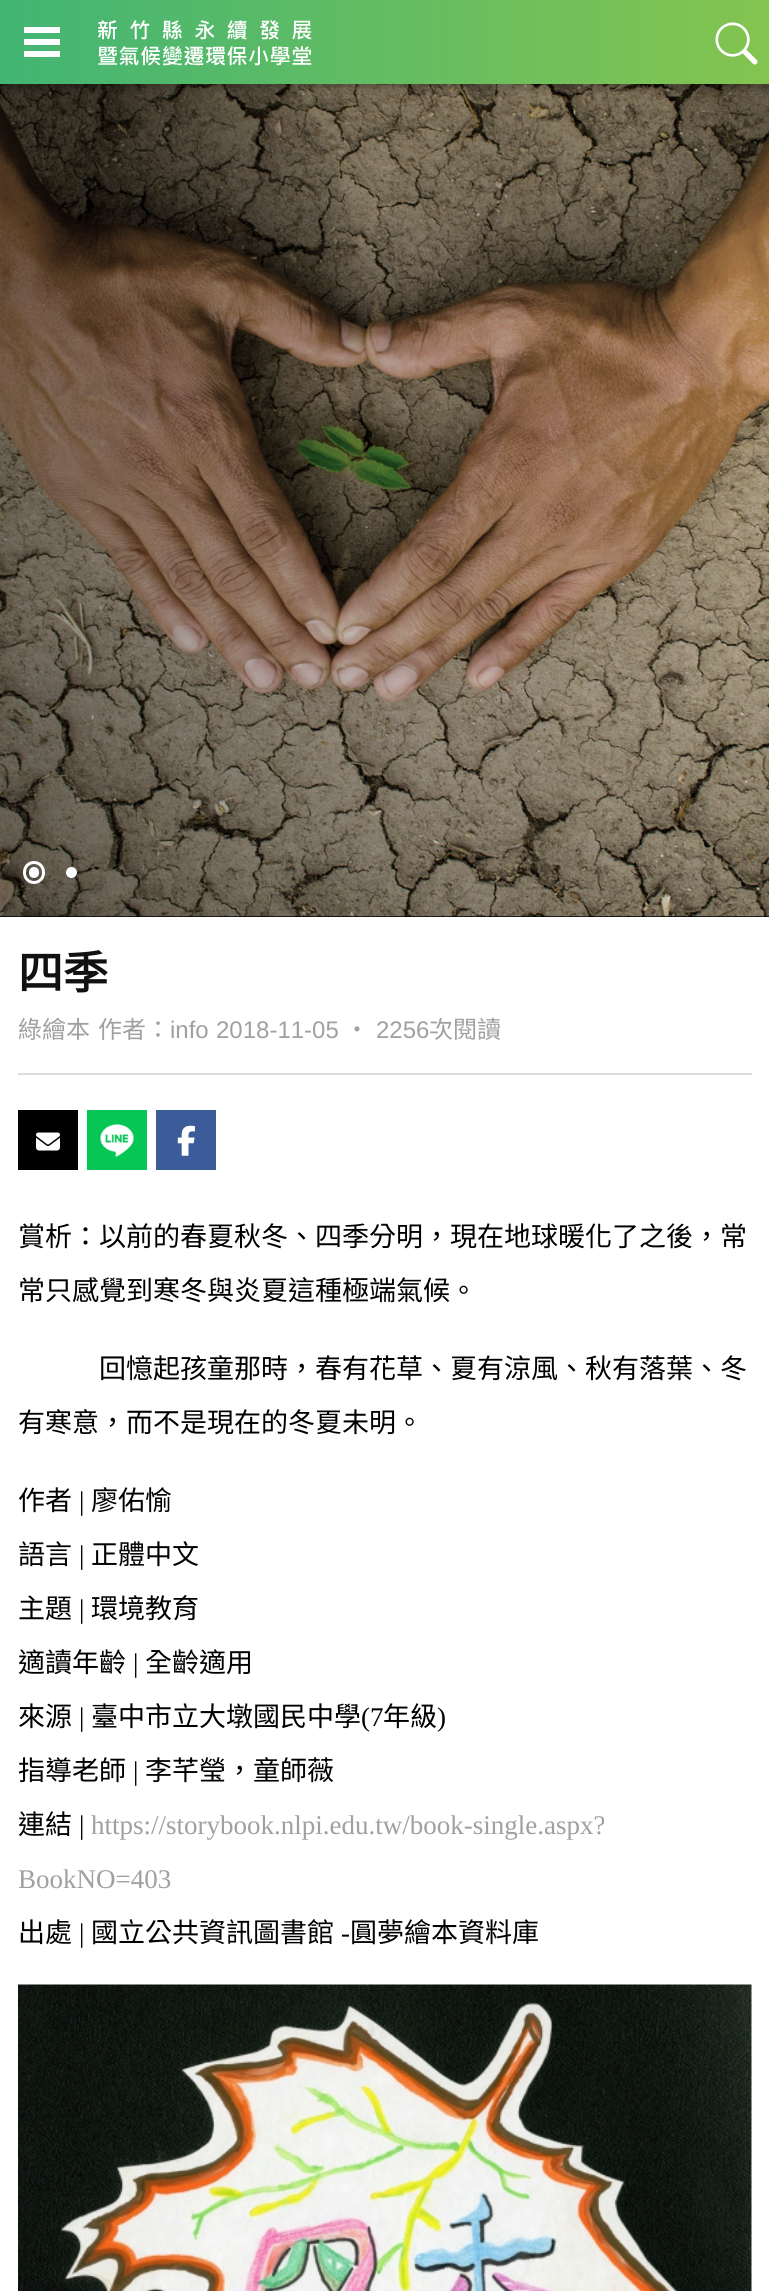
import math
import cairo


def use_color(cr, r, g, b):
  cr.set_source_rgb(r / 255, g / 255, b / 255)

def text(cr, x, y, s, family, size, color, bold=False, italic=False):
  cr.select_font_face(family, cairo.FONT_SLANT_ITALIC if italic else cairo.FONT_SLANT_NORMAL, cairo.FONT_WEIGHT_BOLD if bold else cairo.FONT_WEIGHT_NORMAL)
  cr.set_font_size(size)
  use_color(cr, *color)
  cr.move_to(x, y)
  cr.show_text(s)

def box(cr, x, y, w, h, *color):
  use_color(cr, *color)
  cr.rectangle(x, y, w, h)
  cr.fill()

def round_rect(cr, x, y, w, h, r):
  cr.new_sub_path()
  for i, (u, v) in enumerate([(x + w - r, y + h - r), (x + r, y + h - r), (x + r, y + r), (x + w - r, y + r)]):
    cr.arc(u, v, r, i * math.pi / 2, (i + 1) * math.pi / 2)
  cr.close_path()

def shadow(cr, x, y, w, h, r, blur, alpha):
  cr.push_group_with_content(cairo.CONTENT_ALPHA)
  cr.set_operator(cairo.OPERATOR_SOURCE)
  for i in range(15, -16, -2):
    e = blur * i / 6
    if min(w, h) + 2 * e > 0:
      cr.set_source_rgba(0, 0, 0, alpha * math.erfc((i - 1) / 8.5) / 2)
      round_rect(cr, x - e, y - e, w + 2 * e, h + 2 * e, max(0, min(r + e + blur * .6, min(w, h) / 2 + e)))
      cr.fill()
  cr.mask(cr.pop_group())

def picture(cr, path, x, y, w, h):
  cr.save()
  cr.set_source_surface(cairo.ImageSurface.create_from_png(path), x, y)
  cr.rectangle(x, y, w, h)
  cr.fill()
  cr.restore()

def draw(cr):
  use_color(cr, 255, 255, 255)
  cr.paint()
  box(cr, 0, 916, 769, 1, 0, 0, 0)
  picture(cr, "img_03.png", 0, 84, 769, 833)
  gradient = cairo.LinearGradient(0, 458, 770, 458)
  gradient.add_color_stop_rgba(0, 0, 0, 0, 0.4)
  gradient.add_color_stop_rgba(1, 0, 0, 0, 0)
  cr.set_source(gradient)
  cr.rectangle(0, 84, 728, 833)
  cr.fill()
  use_color(cr, 0, 0, 0)
  shadow(cr, 0, 5, 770, 84, 0, 4, 0.25)
  gradient = cairo.LinearGradient(0, 42, 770, 42)
  gradient.add_color_stop_rgba(0, 0.259, 0.71, 0.455, 1)
  gradient.add_color_stop_rgba(1, 0.518, 0.769, 0.314, 1)
  cr.set_source(gradient)
  cr.rectangle(0, 0, 769, 84)
  cr.fill()
  box(cr, 24, 39, 36, 6, 255, 255, 255)
  box(cr, 24, 27, 36, 6, 255, 255, 255)
  box(cr, 24, 51, 36, 6, 255, 255, 255)
  picture(cr, "img_01.png", 98, 20, 214, 46)
  picture(cr, "img_02.png", 715, 22, 43, 43)
  round_rect(cr, 24.5, 862.5, 19, 20, 9.5)
  cr.set_line_width(3)
  cr.stroke()
  round_rect(cr, 29, 867, 10, 11, 5)
  cr.fill()
  cr.arc(71.5, 872.5, 5.5, 0, 2 * math.pi)
  cr.fill()
  box(cr, 18, 1073, 734, 2, 221, 221, 221)
  box(cr, 18, 1110, 60, 60, 0, 0, 0)
  picture(cr, "img_04.png", 36, 1132, 24, 19)
  box(cr, 87, 1110, 60, 60, 6, 199, 85)
  picture(cr, "img_05.png", 99, 1123, 35, 34)
  box(cr, 156, 1110, 60, 60, 60, 91, 153)
  picture(cr, "img_06.png", 177, 1125, 18, 31)
  picture(cr, "img_07.png", 18, 1984, 734, 307)
  text(cr, 18, 989, "四季", "Noto Sans CJK TC", 45, (17, 17, 17), bold=True)
  text(cr, 18, 1038, "綠繪本", "Noto Sans CJK TC", 24, (160, 160, 160))
  text(cr, 98, 1038, "作者：", "Noto Sans CJK TC", 24, (160, 160, 160))
  text(cr, 170, 1038, "info", "Liberation Sans", 24, (160, 160, 160))
  text(cr, 216, 1038, "2018-11-05", "Liberation Sans", 24, (160, 160, 160))
  text(cr, 345, 1038, "‧", "Noto Sans CJK TC", 24, (160, 160, 160))
  text(cr, 376, 1038, "2256", "Liberation Sans", 24, (160, 160, 160))
  text(cr, 429, 1038, "次閱讀", "Noto Sans CJK TC", 24, (160, 160, 160))
  text(cr, 18, 1246, "賞析：以前的春夏秋冬、四季分明，現在地球暖化了之後，常", "Noto Sans CJK TC", 27, (0, 0, 0))
  text(cr, 18, 1300, "常只感覺到寒冬與炎夏這種極端氣候。", "Noto Sans CJK TC", 27, (0, 0, 0))
  text(cr, 99, 1378, "回憶起孩童那時，春有花草、夏有涼風、秋有落葉、冬", "Noto Sans CJK TC", 27, (0, 0, 0))
  text(cr, 18, 1432, "有寒意，而不是現在的冬夏未明。", "Noto Sans CJK TC", 27, (0, 0, 0))
  text(cr, 18, 1510, "作者", "Noto Sans CJK TC", 27, (0, 0, 0))
  text(cr, 79, 1510, "|", "Liberation Serif", 27, (0, 0, 0))
  text(cr, 91, 1510, "廖佑愉", "Noto Sans CJK TC", 27, (0, 0, 0))
  text(cr, 18, 1564, "語言", "Noto Sans CJK TC", 27, (0, 0, 0))
  text(cr, 79, 1564, "|", "Liberation Serif", 27, (0, 0, 0))
  text(cr, 91, 1564, "正體中文", "Noto Sans CJK TC", 27, (0, 0, 0))
  text(cr, 18, 1618, "主題", "Noto Sans CJK TC", 27, (0, 0, 0))
  text(cr, 79, 1618, "|", "Liberation Serif", 27, (0, 0, 0))
  text(cr, 91, 1618, "環境教育", "Noto Sans CJK TC", 27, (0, 0, 0))
  text(cr, 18, 1672, "適讀年齡", "Noto Sans CJK TC", 27, (0, 0, 0))
  text(cr, 133, 1672, "|", "Liberation Serif", 27, (0, 0, 0))
  text(cr, 145, 1672, "全齡適用", "Noto Sans CJK TC", 27, (0, 0, 0))
  text(cr, 18, 1726, "來源", "Noto Sans CJK TC", 27, (0, 0, 0))
  text(cr, 79, 1726, "|", "Liberation Serif", 27, (0, 0, 0))
  text(cr, 91, 1726, "臺中市立大墩國民中學", "Noto Sans CJK TC", 27, (0, 0, 0))
  text(cr, 361, 1726, "(7", "Liberation Serif", 27, (0, 0, 0))
  text(cr, 383, 1726, "年級", "Noto Sans CJK TC", 27, (0, 0, 0))
  text(cr, 437, 1726, ")", "Liberation Serif", 27, (0, 0, 0))
  text(cr, 18, 1780, "指導老師", "Noto Sans CJK TC", 27, (0, 0, 0))
  text(cr, 133, 1780, "|", "Liberation Serif", 27, (0, 0, 0))
  text(cr, 145, 1780, "李芊瑩，童師薇", "Noto Sans CJK TC", 27, (0, 0, 0))
  text(cr, 18, 1834, "連結", "Noto Sans CJK TC", 27, (0, 0, 0))
  text(cr, 79, 1834, "|", "Liberation Serif", 27, (0, 0, 0))
  text(cr, 91, 1834, "https://storybook.nlpi.edu.tw/book-single.aspx?", "Liberation Serif", 27, (160, 160, 160))
  text(cr, 18, 1888, "BookNO=403", "Liberation Serif", 27, (160, 160, 160))
  text(cr, 18, 1942, "出處", "Noto Sans CJK TC", 27, (0, 0, 0))
  text(cr, 79, 1942, "|", "Liberation Serif", 27, (0, 0, 0))
  text(cr, 91, 1942, "國立公共資訊圖書館", "Noto Sans CJK TC", 27, (0, 0, 0))
  text(cr, 341, 1942, "-", "Liberation Serif", 27, (0, 0, 0))
  text(cr, 350, 1942, "圓夢繪本資料庫", "Noto Sans CJK TC", 27, (0, 0, 0))


surface = cairo.ImageSurface(cairo.FORMAT_RGB24, 769, 2291)
cr = cairo.Context(surface)
options = cairo.FontOptions()
options.set_hint_metrics(cairo.HINT_METRICS_OFF)
options.set_hint_style(cairo.HINT_STYLE_NONE)
cr.set_font_options(options)
cr.set_miter_limit(4)
draw(cr)
surface.write_to_png("out.png")
